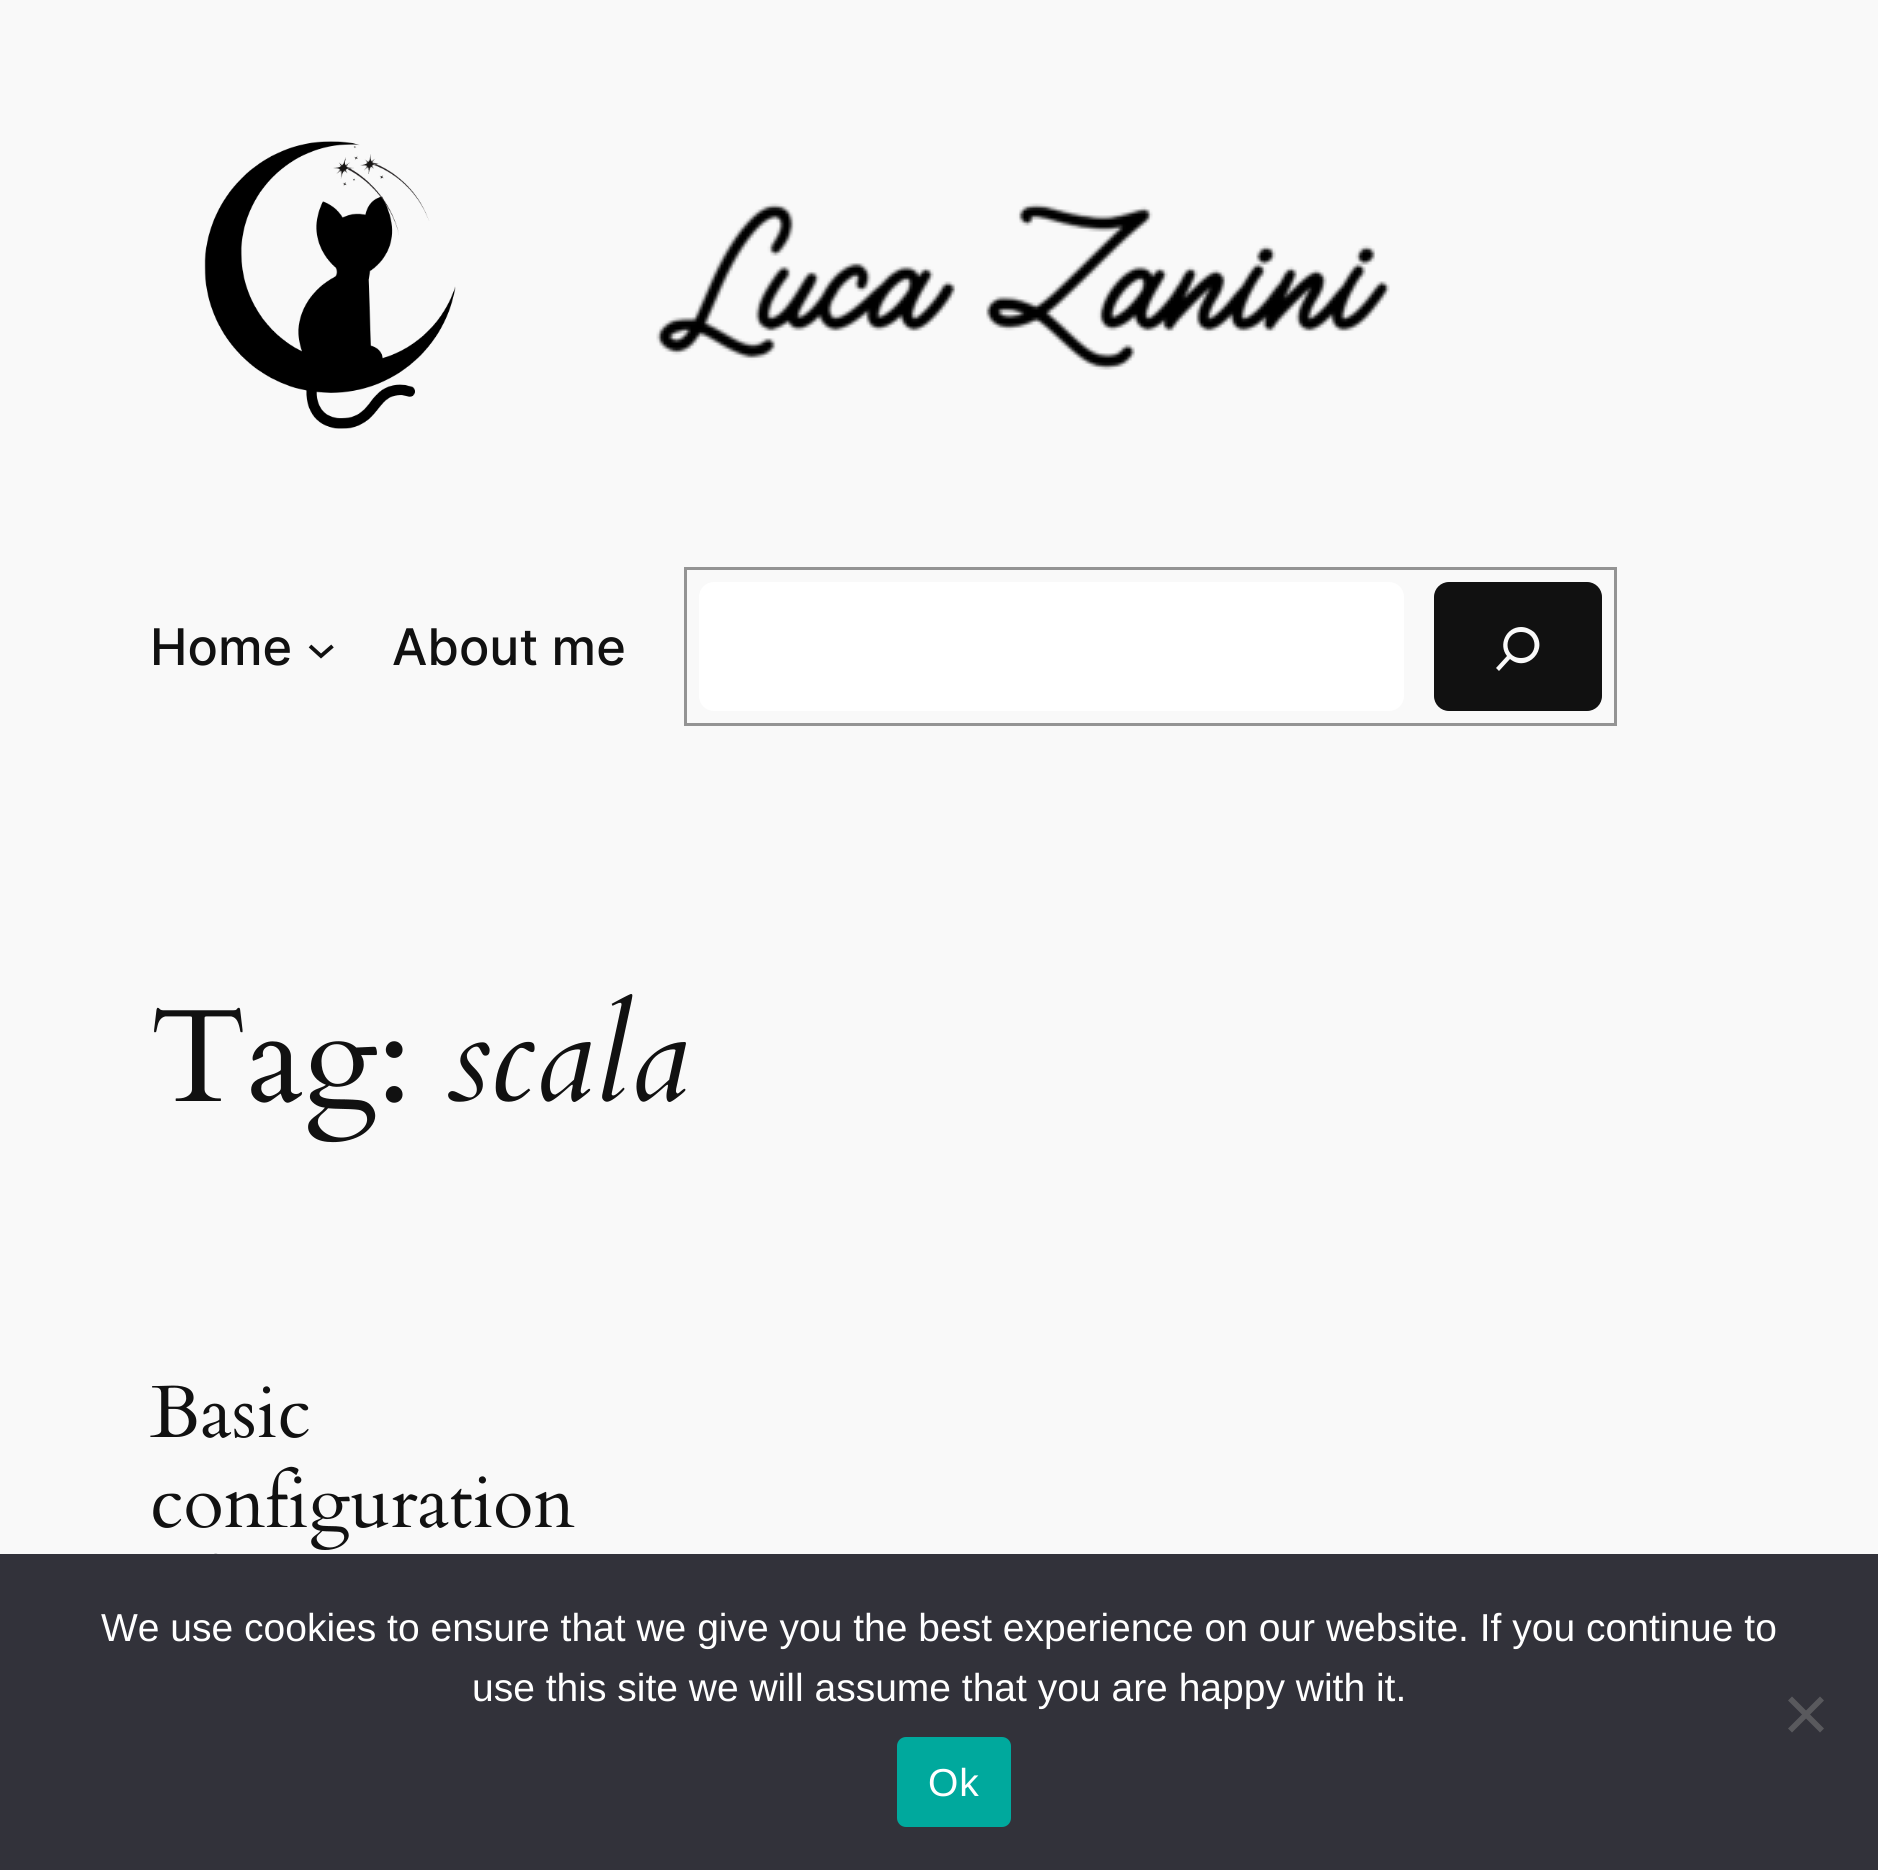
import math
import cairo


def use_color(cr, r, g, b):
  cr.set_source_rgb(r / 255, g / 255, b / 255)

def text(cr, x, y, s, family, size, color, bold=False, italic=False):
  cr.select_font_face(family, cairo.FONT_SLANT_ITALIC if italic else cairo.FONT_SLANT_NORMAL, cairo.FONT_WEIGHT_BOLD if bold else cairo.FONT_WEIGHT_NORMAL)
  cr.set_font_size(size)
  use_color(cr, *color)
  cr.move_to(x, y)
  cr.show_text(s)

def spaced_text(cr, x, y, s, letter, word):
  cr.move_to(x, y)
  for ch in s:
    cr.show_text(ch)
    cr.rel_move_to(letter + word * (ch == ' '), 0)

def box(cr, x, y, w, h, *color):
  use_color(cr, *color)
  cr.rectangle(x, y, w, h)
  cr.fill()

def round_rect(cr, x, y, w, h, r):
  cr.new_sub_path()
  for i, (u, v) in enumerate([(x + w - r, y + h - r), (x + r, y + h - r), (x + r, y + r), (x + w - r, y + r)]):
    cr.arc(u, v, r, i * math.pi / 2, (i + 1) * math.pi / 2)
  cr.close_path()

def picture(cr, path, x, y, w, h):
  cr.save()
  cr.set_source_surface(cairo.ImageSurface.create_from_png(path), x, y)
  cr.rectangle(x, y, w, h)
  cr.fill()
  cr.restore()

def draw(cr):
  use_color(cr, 249, 249, 249)
  cr.paint()
  picture(cr, "img_01.png", 204, 141, 252, 288)
  picture(cr, "img_02.png", 656, 203, 734, 167)
  cr.new_path()
  cr.move_to(310, 646)
  cr.line_to(321, 656)
  cr.line_to(332.5, 646)
  use_color(cr, 17, 17, 17)
  cr.set_line_width(3.8)
  cr.stroke()
  cr.rectangle(685.5, 568.5, 930, 156)
  use_color(cr, 148, 148, 148)
  cr.set_line_width(3)
  cr.stroke()
  use_color(cr, 255, 255, 255)
  round_rect(cr, 699, 582, 705, 129, 15)
  cr.fill()
  use_color(cr, 17, 17, 17)
  round_rect(cr, 1434, 582, 168, 129, 15)
  cr.fill()
  use_color(cr, 249, 249, 249)
  cr.new_path()
  cr.move_to(1521, 627)
  cr.curve_to(1506, 627, 1498, 645, 1507, 656)
  cr.line_to(1496, 668)
  cr.line_to(1499, 671)
  cr.line_to(1510, 659)
  cr.curve_to(1527, 673, 1550, 649, 1534, 632)
  cr.curve_to(1530, 629, 1526, 627, 1521, 627)
  cr.close_path()
  cr.move_to(1521, 658)
  cr.curve_to(1503, 658, 1503, 632, 1521, 632)
  cr.curve_to(1539, 632, 1539, 658, 1521, 658)
  cr.close_path()
  cr.fill()
  picture(cr, "img_03.png", 154, 1007, 249, 136)
  picture(cr, "img_04.png", 150, 1385, 159, 53)
  picture(cr, "img_05.png", 153, 1466, 422, 84)
  picture(cr, "img_06.png", 214, 1553, 4, 1)
  box(cr, 0, 1554, 1878, 316, 50, 50, 58)
  use_color(cr, 89, 89, 93)
  cr.new_path()
  cr.move_to(1820, 1696.5)
  cr.line_to(1824, 1700.5)
  cr.line_to(1792, 1732.5)
  cr.line_to(1788, 1728.5)
  cr.close_path()
  cr.fill()
  cr.new_path()
  cr.move_to(1788, 1700.5)
  cr.line_to(1792, 1696.5)
  cr.line_to(1824, 1728.5)
  cr.line_to(1820, 1732.5)
  cr.close_path()
  cr.fill()
  use_color(cr, 0, 169, 157)
  round_rect(cr, 897, 1737, 114, 90, 9)
  cr.fill()
  text(cr, 150, 665, "Home", "Inter Medium", 50.5, (17, 17, 17))
  text(cr, 392, 665, "About me", "Inter Medium", 50.5, (17, 17, 17))
  text(cr, 446, 1100, "scala", "Cardo", 132, (17, 17, 17), italic=True)
  text(cr, 101, 1641, "We use cookies to ensure that we give you the best experience on our website. If you continue to", "Liberation Sans", 39, (255, 255, 255))
  text(cr, 472, 1701, "use this site we will assume that you are happy with it.", "Liberation Sans", 39, (255, 255, 255))
  spaced_text(cr, 928, 1796, "Ok", 1, 0)


surface = cairo.ImageSurface(cairo.FORMAT_RGB24, 1878, 1870)
cr = cairo.Context(surface)
options = cairo.FontOptions()
options.set_hint_metrics(cairo.HINT_METRICS_OFF)
options.set_hint_style(cairo.HINT_STYLE_NONE)
cr.set_font_options(options)
cr.set_miter_limit(4)
draw(cr)
surface.write_to_png("out.png")
